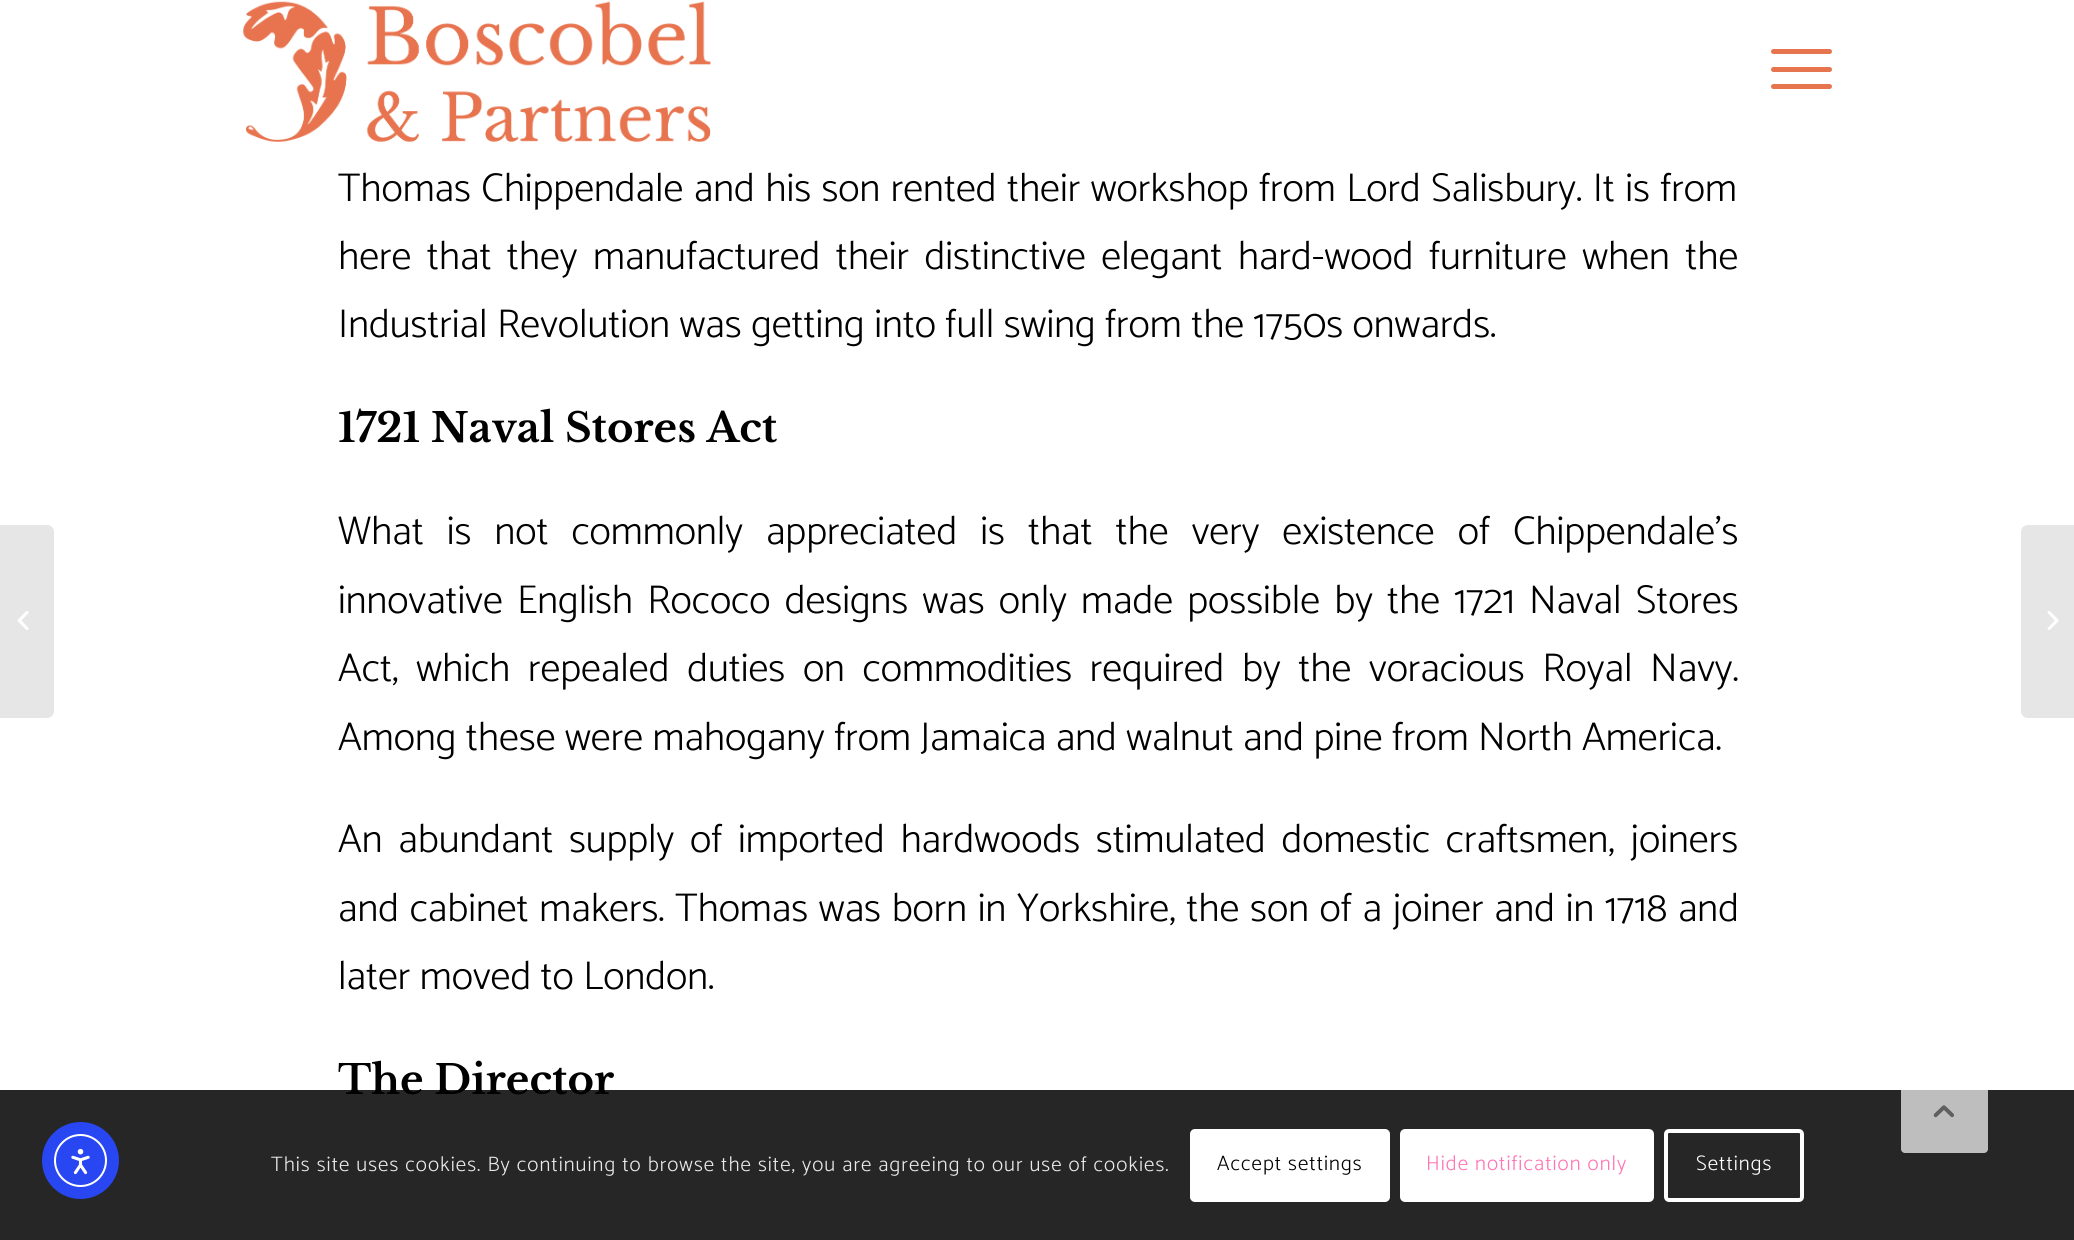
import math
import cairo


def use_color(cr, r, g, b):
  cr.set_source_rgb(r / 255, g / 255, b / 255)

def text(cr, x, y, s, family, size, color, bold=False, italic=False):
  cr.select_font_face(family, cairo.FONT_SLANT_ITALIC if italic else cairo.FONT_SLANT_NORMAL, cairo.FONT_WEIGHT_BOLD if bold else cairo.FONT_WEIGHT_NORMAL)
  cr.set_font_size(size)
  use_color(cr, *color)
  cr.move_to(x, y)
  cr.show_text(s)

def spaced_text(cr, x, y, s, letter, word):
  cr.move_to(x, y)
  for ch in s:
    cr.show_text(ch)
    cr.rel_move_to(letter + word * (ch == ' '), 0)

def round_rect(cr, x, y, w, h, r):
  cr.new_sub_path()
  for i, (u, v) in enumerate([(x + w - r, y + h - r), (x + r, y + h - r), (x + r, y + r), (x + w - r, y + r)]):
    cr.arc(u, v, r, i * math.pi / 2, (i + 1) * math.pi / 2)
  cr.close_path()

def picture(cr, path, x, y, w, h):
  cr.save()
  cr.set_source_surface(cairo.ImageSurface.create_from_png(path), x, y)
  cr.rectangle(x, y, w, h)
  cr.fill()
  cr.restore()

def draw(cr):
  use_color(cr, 255, 255, 255)
  cr.paint()
  picture(cr, "img_01.png", 243, 1, 468, 141)
  use_color(cr, 230, 116, 78)
  round_rect(cr, 1771, 67, 61, 5, 2.5)
  cr.fill()
  round_rect(cr, 1771, 49, 61, 5, 2.5)
  cr.fill()
  round_rect(cr, 1771, 84, 61, 5, 2.5)
  cr.fill()
  use_color(cr, 230, 230, 230)
  cr.new_path()
  cr.move_to(0, 525)
  cr.line_to(47, 525)
  cr.curve_to(51, 525, 54, 528, 54, 532)
  cr.line_to(54, 711)
  cr.curve_to(54, 715, 51, 718, 47, 718)
  cr.line_to(0, 718)
  cr.close_path()
  cr.fill()
  picture(cr, "img_02.png", 17, 611, 12, 19)
  cr.new_path()
  cr.move_to(2028, 525)
  cr.line_to(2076, 525)
  cr.line_to(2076, 718)
  cr.line_to(2028, 718)
  cr.curve_to(2024, 718, 2021, 715, 2021, 711)
  cr.line_to(2021, 532)
  cr.curve_to(2021, 528, 2024, 525, 2028, 525)
  cr.close_path()
  cr.fill()
  picture(cr, "img_03.png", 2047, 611, 12, 19)
  cr.select_font_face("Catamaran Light")
  cr.set_font_size(40.25)
  use_color(cr, 0, 0, 0)
  spaced_text(cr, 338, 201, "Thomas Chippendale and his son rented their workshop from Lord Salisbury. It is from", 0, 1)
  spaced_text(cr, 338, 269, "here that they manufactured their distinctive elegant hard-wood furniture when the", 0, 6)
  text(cr, 338, 337, "Industrial Revolution was getting into full swing from the 1750s onwards.", "Catamaran Light", 40.25, (0, 0, 0))
  text(cr, 338, 442, "1721 Naval Stores Act", "Libre Baskerville", 40.25, (0, 0, 0), bold=True)
  cr.select_font_face("Catamaran Light")
  spaced_text(cr, 338, 544, "What is not commonly appreciated is that the very existence of Chippendale’s", 0, 13.6)
  spaced_text(cr, 338, 613, "innovative English Rococo designs was only made possible by the 1721 Naval Stores", 0, 4.75)
  spaced_text(cr, 338, 681, "Act, which repealed duties on commodities required by the voracious Royal Navy.", 0, 8.25)
  text(cr, 338, 750, "Among these were mahogany from Jamaica and walnut and pine from North America.", "Catamaran Light", 40.25, (0, 0, 0))
  spaced_text(cr, 338, 852, "An abundant supply of imported hardwoods stimulated domestic craftsmen, joiners", 0, 6.25)
  spaced_text(cr, 338, 921, "and cabinet makers. Thomas was born in Yorkshire, the son of a joiner and in 1718 and", 0, 1.25)
  text(cr, 338, 989, "later moved to London.", "Catamaran Light", 40.25, (0, 0, 0))
  text(cr, 338, 1094, "The Director", "Libre Baskerville", 40.25, (0, 0, 0), bold=True)
  cr.set_source_rgba(0, 0, 0, 0.85)
  cr.rectangle(0, 1090, 2074, 150)
  cr.fill()
  use_color(cr, 40, 71, 243)
  cr.arc(80.5, 1160.5, 38.5, 0, 2 * math.pi)
  cr.fill()
  cr.arc(80.5, 1160.5, 25.5, 0, 2 * math.pi)
  use_color(cr, 255, 255, 255)
  cr.stroke()
  picture(cr, "img_04.png", 71, 1148, 19, 27)
  cr.select_font_face("Catamaran Light")
  cr.set_font_size(21)
  use_color(cr, 233, 233, 233)
  spaced_text(cr, 271, 1171, "This site uses cookies. By continuing to browse the site, you are agreeing to our use of cookies.", 1.05, 0)
  use_color(cr, 255, 255, 255)
  round_rect(cr, 1190, 1129, 200, 73, 5)
  cr.fill()
  use_color(cr, 0, 0, 0)
  spaced_text(cr, 1217, 1170, "Accept settings", 1.05, 0)
  use_color(cr, 255, 255, 255)
  round_rect(cr, 1402, 1131, 250, 69, 3)
  cr.fill_preserve()
  cr.set_line_width(4)
  cr.stroke()
  use_color(cr, 255, 117, 181)
  spaced_text(cr, 1426, 1170, "Hide notification only", 1.05, 0)
  round_rect(cr, 1666, 1131, 136, 69, 3)
  use_color(cr, 255, 255, 255)
  cr.stroke()
  spaced_text(cr, 1696, 1170, "Settings", 1.05, 0)
  cr.set_source_rgba(1, 1, 1, 0.7)
  round_rect(cr, 1901, 1066, 87, 87, 4)
  cr.fill()
  picture(cr, "img_05.png", 1933, 1105, 21, 13)


surface = cairo.ImageSurface(cairo.FORMAT_RGB24, 2074, 1240)
cr = cairo.Context(surface)
options = cairo.FontOptions()
options.set_hint_metrics(cairo.HINT_METRICS_OFF)
options.set_hint_style(cairo.HINT_STYLE_NONE)
cr.set_font_options(options)
cr.set_miter_limit(4)
draw(cr)
surface.write_to_png("out.png")
